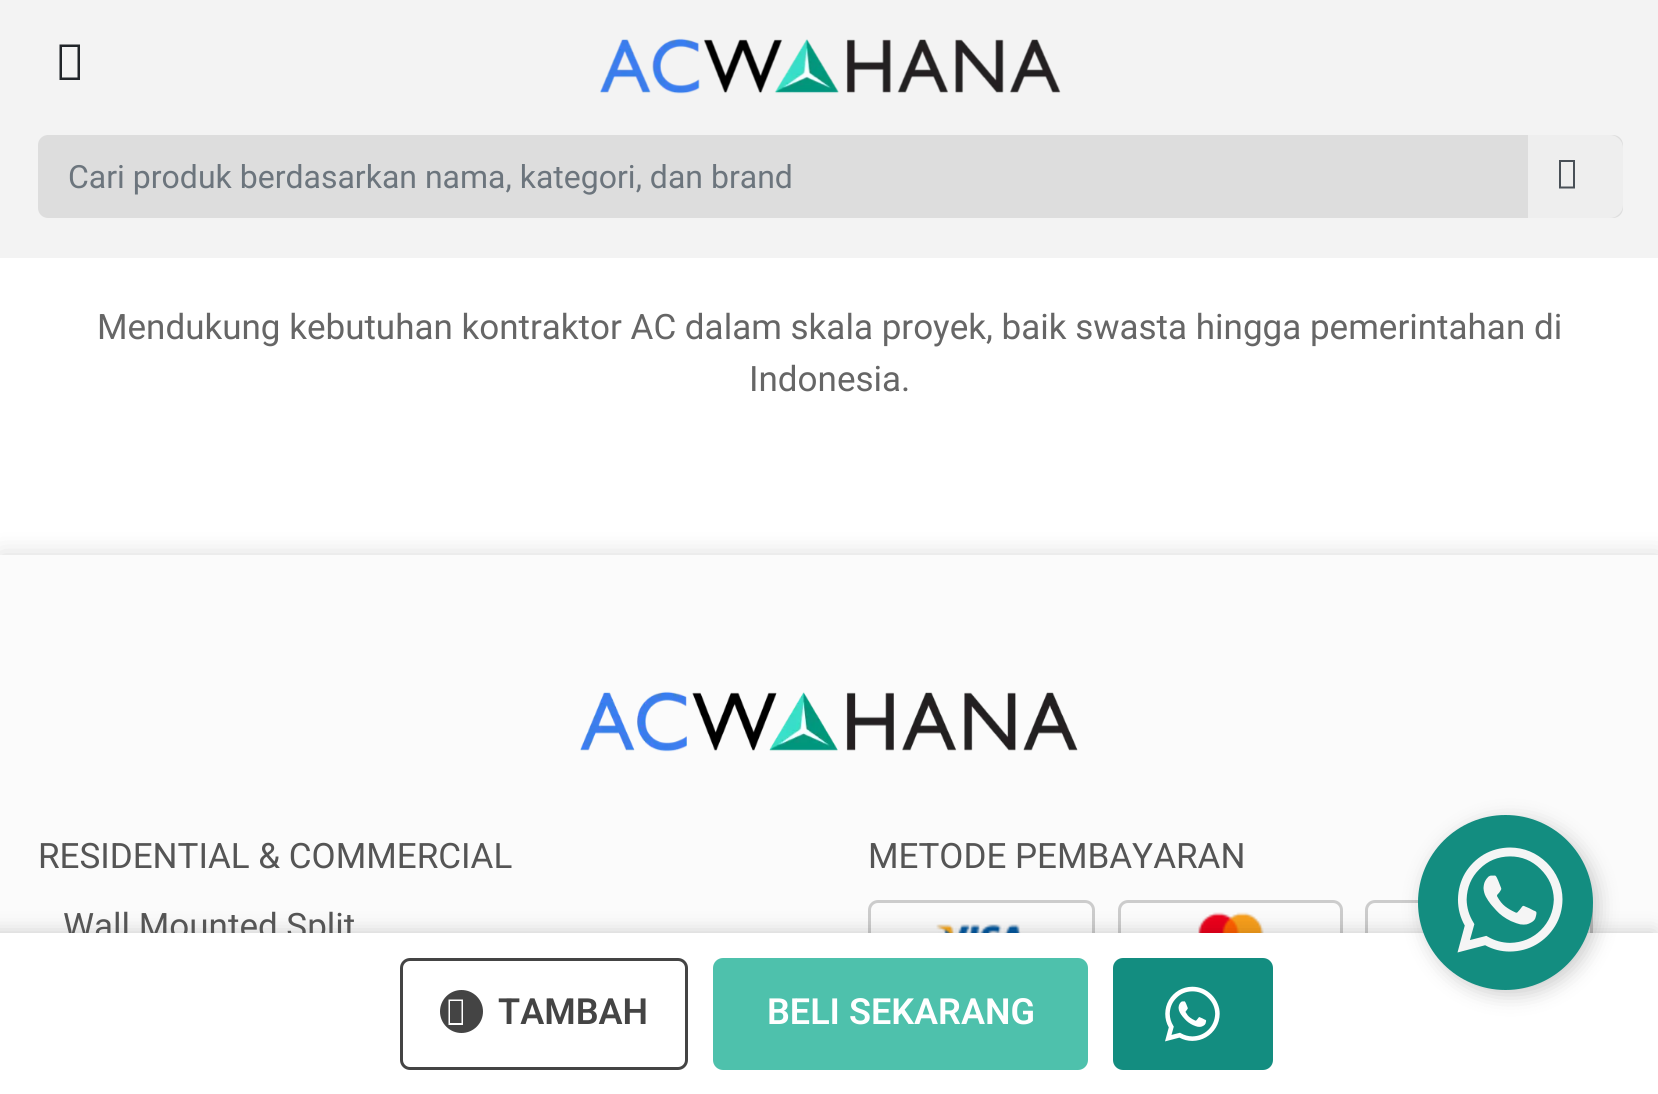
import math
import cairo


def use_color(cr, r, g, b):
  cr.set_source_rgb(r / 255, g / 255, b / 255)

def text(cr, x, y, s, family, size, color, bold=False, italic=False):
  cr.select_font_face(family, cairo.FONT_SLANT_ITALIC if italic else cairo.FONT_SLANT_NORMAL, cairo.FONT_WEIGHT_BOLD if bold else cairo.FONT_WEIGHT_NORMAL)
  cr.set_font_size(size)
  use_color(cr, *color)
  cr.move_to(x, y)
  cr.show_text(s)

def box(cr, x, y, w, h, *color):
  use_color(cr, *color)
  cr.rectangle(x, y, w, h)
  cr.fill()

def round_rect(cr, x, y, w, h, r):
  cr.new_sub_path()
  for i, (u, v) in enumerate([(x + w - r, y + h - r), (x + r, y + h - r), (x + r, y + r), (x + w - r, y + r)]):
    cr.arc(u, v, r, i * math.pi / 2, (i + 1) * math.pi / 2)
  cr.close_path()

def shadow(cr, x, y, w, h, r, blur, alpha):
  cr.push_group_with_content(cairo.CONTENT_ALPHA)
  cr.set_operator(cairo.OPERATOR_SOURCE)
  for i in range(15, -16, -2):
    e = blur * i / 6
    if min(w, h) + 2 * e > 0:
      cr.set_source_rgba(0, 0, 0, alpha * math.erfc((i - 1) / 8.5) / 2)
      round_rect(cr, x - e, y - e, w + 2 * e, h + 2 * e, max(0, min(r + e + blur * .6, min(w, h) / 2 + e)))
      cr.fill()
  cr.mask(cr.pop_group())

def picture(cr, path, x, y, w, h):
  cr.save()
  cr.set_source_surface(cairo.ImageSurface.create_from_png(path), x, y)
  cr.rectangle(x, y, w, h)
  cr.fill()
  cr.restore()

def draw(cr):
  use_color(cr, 255, 255, 255)
  cr.paint()
  box(cr, 0, 0, 1658, 258, 243, 243, 243)
  use_color(cr, 33, 37, 41)
  cr.new_path()
  cr.move_to(59.5, 80)
  cr.line_to(59.5, 44.5)
  cr.line_to(80, 44.5)
  cr.line_to(80, 80)
  cr.close_path()
  cr.move_to(62, 77.5)
  cr.line_to(77.5, 77.5)
  cr.line_to(77.5, 47)
  cr.line_to(62, 47)
  cr.close_path()
  cr.fill()
  picture(cr, "img_01.png", 600, 38, 461, 56)
  use_color(cr, 221, 221, 221)
  round_rect(cr, 38, 135, 1585, 83, 10)
  cr.fill()
  use_color(cr, 238, 238, 238)
  cr.new_path()
  cr.move_to(1528, 135)
  cr.line_to(1610, 135)
  cr.curve_to(1617, 135, 1623, 141, 1623, 148)
  cr.line_to(1623, 205)
  cr.curve_to(1623, 212, 1617, 218, 1610, 218)
  cr.line_to(1528, 218)
  cr.close_path()
  cr.fill()
  use_color(cr, 73, 80, 87)
  cr.new_path()
  cr.move_to(1559, 188.5)
  cr.line_to(1559, 160)
  cr.line_to(1575, 160)
  cr.line_to(1575, 188.5)
  cr.close_path()
  cr.move_to(1561, 186.5)
  cr.line_to(1573, 186.5)
  cr.line_to(1573, 162)
  cr.line_to(1561, 162)
  cr.close_path()
  cr.fill()
  use_color(cr, 0, 0, 0)
  shadow(cr, 0, 555, 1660, 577, 0, 12.5, 0.15)
  box(cr, 0, 555, 1658, 378, 251, 251, 251)
  picture(cr, "img_03.png", 580, 691, 498, 61)
  round_rect(cr, 869.5, 901.5, 224, 72, 8.5)
  use_color(cr, 204, 204, 204)
  cr.set_line_width(3)
  cr.stroke()
  picture(cr, "img_04.png", 936, 924, 85, 9)
  round_rect(cr, 1119.5, 901.5, 222, 72, 8.5)
  cr.stroke()
  picture(cr, "img_05.png", 1198, 912, 66, 21)
  round_rect(cr, 1366.5, 901.5, 225, 72, 8.5)
  cr.stroke()
  use_color(cr, 0, 0, 0)
  shadow(cr, -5, 933, 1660, 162, 0, 10, 0.2)
  text(cr, 68, 188, "Cari produk berdasarkan nama, kategori, dan brand", "Roboto", 32, (108, 117, 125))
  text(cr, 97, 339, "Mendukung kebutuhan kontraktor AC dalam skala proyek, baik swasta hingga pemerintahan di", "Roboto", 35, (102, 102, 102))
  text(cr, 749, 391, "Indonesia.", "Roboto", 35, (102, 102, 102))
  text(cr, 38, 868, "RESIDENTIAL & COMMERCIAL", "Roboto", 35, (85, 85, 85))
  text(cr, 63, 938, "Wall Mounted Split", "Roboto", 35, (85, 85, 85))
  text(cr, 868, 868, "METODE PEMBAYARAN", "Roboto", 35, (85, 85, 85))
  box(cr, 0, 933, 1658, 161, 255, 255, 255)
  use_color(cr, 0, 0, 0)
  shadow(cr, 1423, 820, 175, 175, 87.5, 10, 0.2)
  use_color(cr, 19, 141, 128)
  cr.arc(1505.5, 902.5, 87.5, 0, 2 * math.pi)
  cr.fill()
  picture(cr, "img_02.png", 1457, 847, 106, 106)
  round_rect(cr, 401.5, 959.5, 285, 109, 8.5)
  use_color(cr, 68, 68, 68)
  cr.stroke()
  cr.arc(461.5, 1011.5, 21.5, 0, 2 * math.pi)
  cr.fill()
  use_color(cr, 255, 255, 255)
  cr.new_path()
  cr.move_to(448.5, 1025)
  cr.line_to(448.5, 999.5)
  cr.line_to(463, 999.5)
  cr.line_to(463, 1025)
  cr.close_path()
  cr.move_to(450, 1023)
  cr.line_to(461.5, 1023)
  cr.line_to(461.5, 1001)
  cr.line_to(450, 1001)
  cr.close_path()
  cr.fill()
  text(cr, 498, 1024, "TAMBAH", "Roboto SemiBold", 36, (68, 68, 68))
  use_color(cr, 78, 193, 172)
  round_rect(cr, 713, 958, 375, 112, 10)
  cr.fill()
  text(cr, 767, 1024, "BELI SEKARANG", "Roboto SemiBold", 36, (255, 255, 255))
  use_color(cr, 19, 141, 128)
  round_rect(cr, 1113, 958, 160, 112, 10)
  cr.fill()
  picture(cr, "img_06.png", 1165, 986, 55, 56)


surface = cairo.ImageSurface(cairo.FORMAT_RGB24, 1658, 1094)
cr = cairo.Context(surface)
options = cairo.FontOptions()
options.set_hint_metrics(cairo.HINT_METRICS_OFF)
options.set_hint_style(cairo.HINT_STYLE_NONE)
cr.set_font_options(options)
cr.set_miter_limit(4)
draw(cr)
surface.write_to_png("out.png")
